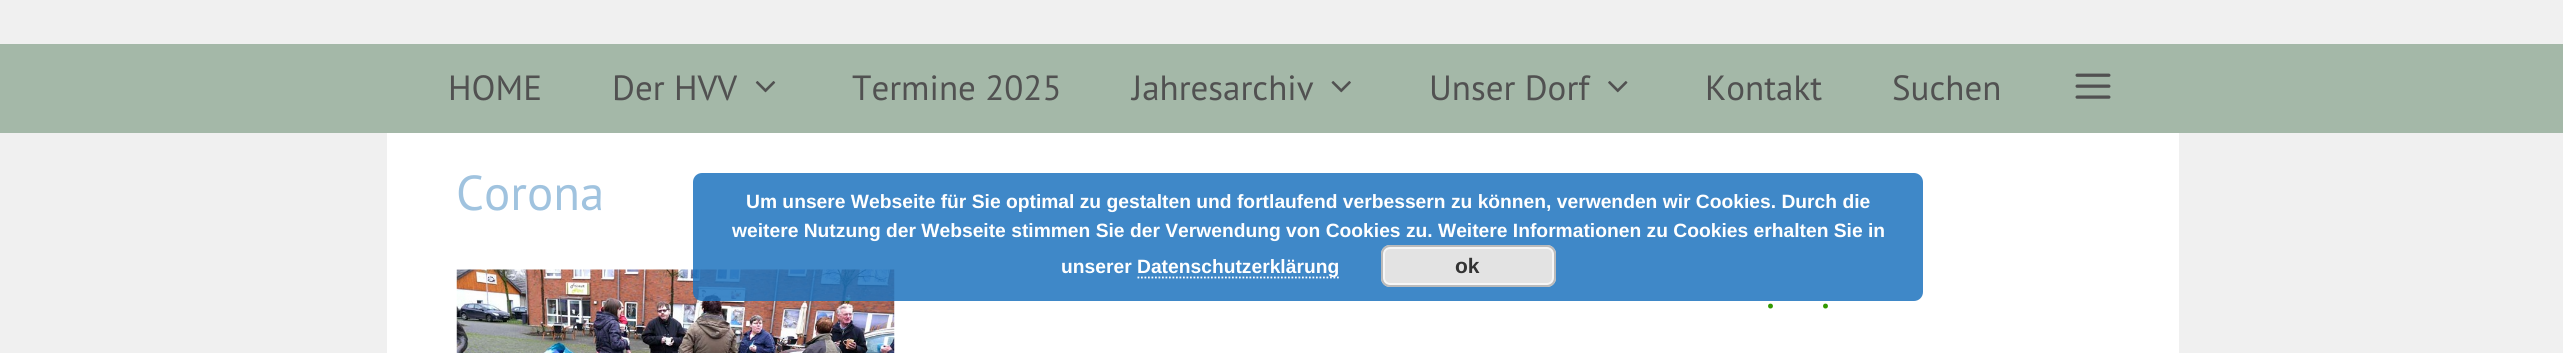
import math
import cairo


def use_color(cr, r, g, b):
  cr.set_source_rgb(r / 255, g / 255, b / 255)

def text(cr, x, y, s, family, size, color, bold=False, italic=False):
  cr.select_font_face(family, cairo.FONT_SLANT_ITALIC if italic else cairo.FONT_SLANT_NORMAL, cairo.FONT_WEIGHT_BOLD if bold else cairo.FONT_WEIGHT_NORMAL)
  cr.set_font_size(size)
  use_color(cr, *color)
  cr.move_to(x, y)
  cr.show_text(s)

def box(cr, x, y, w, h, *color):
  use_color(cr, *color)
  cr.rectangle(x, y, w, h)
  cr.fill()

def round_rect(cr, x, y, w, h, r):
  cr.new_sub_path()
  for i, (u, v) in enumerate([(x + w - r, y + h - r), (x + r, y + h - r), (x + r, y + r), (x + w - r, y + r)]):
    cr.arc(u, v, r, i * math.pi / 2, (i + 1) * math.pi / 2)
  cr.close_path()

def picture(cr, path, x, y, w, h):
  cr.save()
  cr.set_source_surface(cairo.ImageSurface.create_from_png(path), x, y)
  cr.rectangle(x, y, w, h)
  cr.fill()
  cr.restore()

def draw(cr):
  use_color(cr, 240, 240, 240)
  cr.paint()
  box(cr, 0, 44, 2563, 89, 164, 184, 168)
  picture(cr, "img_01.png", 755, 81, 21, 12)
  picture(cr, "img_02.png", 1331, 81, 20, 12)
  picture(cr, "img_03.png", 1608, 81, 20, 12)
  picture(cr, "img_04.png", 2075, 73, 36, 26)
  box(cr, 387, 133, 1792, 220, 255, 255, 255)
  picture(cr, "img_05.png", 456, 269, 439, 84)
  cr.set_source_rgba(0.118, 0.451, 0.745, 0.85)
  round_rect(cr, 693, 173, 1230, 128, 9)
  cr.fill()
  cr.new_path()
  cr.move_to(1137.5, 277.5)
  cr.line_to(1339, 277.5)
  use_color(cr, 255, 255, 255)
  cr.set_line_width(1.8)
  cr.set_dash([1.75, 1.75])
  cr.stroke()
  use_color(cr, 227, 227, 227)
  round_rect(cr, 1381, 245, 175, 42, 9)
  cr.fill()
  round_rect(cr, 1384, 248, 169, 36, 6)
  use_color(cr, 246, 246, 246)
  cr.set_line_width(2)
  cr.set_dash([])
  cr.stroke()
  round_rect(cr, 1382, 246, 173, 40, 8)
  use_color(cr, 187, 187, 187)
  cr.stroke()
  text(cr, 448, 100, "HOME", "PT Sans", 35, (81, 81, 81))
  text(cr, 612, 100, "Der HVV", "PT Sans", 35, (81, 81, 81))
  text(cr, 852, 100, "Termine 2025", "PT Sans", 35, (81, 81, 81))
  text(cr, 1132, 100, "Jahresarchiv", "PT Sans", 35, (81, 81, 81))
  text(cr, 1429, 100, "Unser Dorf", "PT Sans", 35, (81, 81, 81))
  text(cr, 1705, 100, "Kontakt", "PT Sans", 35, (81, 81, 81))
  text(cr, 1892, 100, "Suchen", "PT Sans", 35, (81, 81, 81))
  text(cr, 456, 210, "Corona", "PT Sans", 49, (160, 195, 223))
  text(cr, 1766, 308, ".", "PT Sans", 42, (51, 153, 0))
  text(cr, 1821, 308, ".", "PT Sans", 42, (51, 153, 0))
  text(cr, 746, 208, "Um unsere Webseite für Sie optimal zu gestalten und fortlaufend verbessern zu können, verwenden wir Cookies. Durch die", "Liberation Sans", 19.25, (255, 255, 255), bold=True)
  text(cr, 732, 237, "weitere Nutzung der Webseite stimmen Sie der Verwendung von Cookies zu. Weitere Informationen zu Cookies erhalten Sie in", "Liberation Sans", 19.25, (255, 255, 255), bold=True)
  text(cr, 1061, 273, "unserer", "Liberation Sans", 19.25, (255, 255, 255), bold=True)
  text(cr, 1137, 273, "Datenschutzerklärung", "Liberation Sans", 19.25, (255, 255, 255), bold=True)
  text(cr, 1455, 273, "ok", "Liberation Sans", 21, (51, 51, 51), bold=True)


surface = cairo.ImageSurface(cairo.FORMAT_RGB24, 2563, 353)
cr = cairo.Context(surface)
options = cairo.FontOptions()
options.set_hint_metrics(cairo.HINT_METRICS_OFF)
options.set_hint_style(cairo.HINT_STYLE_NONE)
cr.set_font_options(options)
cr.set_miter_limit(4)
draw(cr)
surface.write_to_png("out.png")
